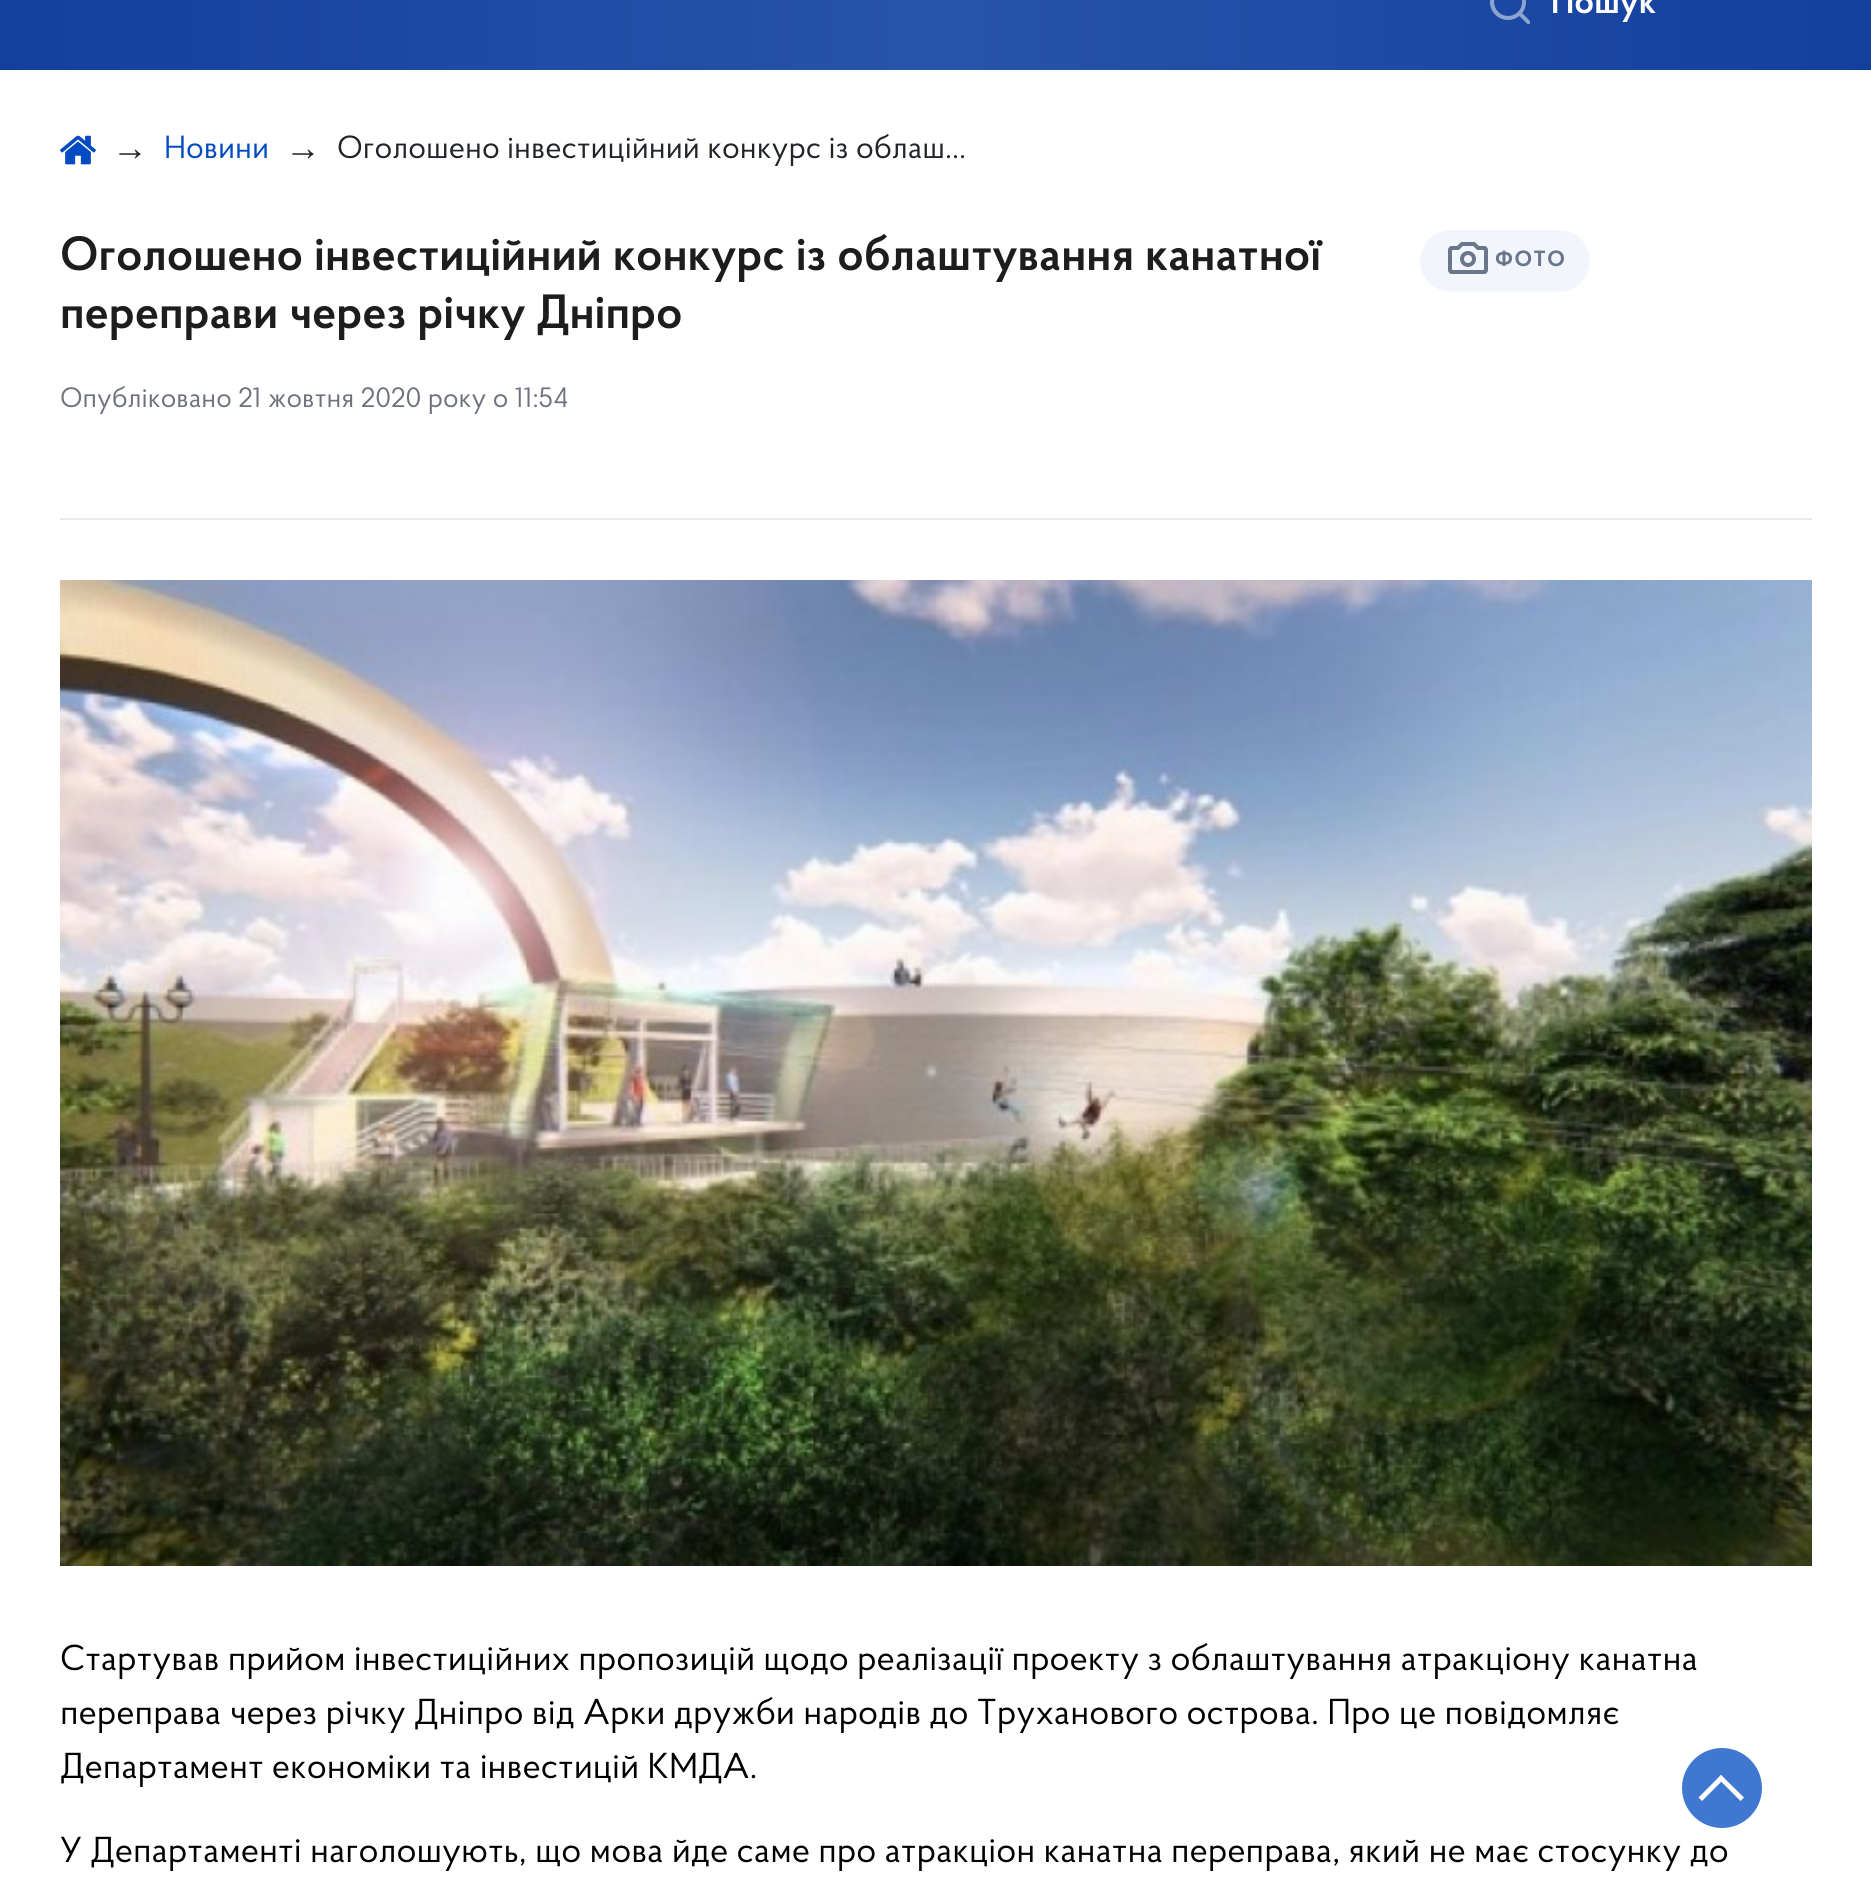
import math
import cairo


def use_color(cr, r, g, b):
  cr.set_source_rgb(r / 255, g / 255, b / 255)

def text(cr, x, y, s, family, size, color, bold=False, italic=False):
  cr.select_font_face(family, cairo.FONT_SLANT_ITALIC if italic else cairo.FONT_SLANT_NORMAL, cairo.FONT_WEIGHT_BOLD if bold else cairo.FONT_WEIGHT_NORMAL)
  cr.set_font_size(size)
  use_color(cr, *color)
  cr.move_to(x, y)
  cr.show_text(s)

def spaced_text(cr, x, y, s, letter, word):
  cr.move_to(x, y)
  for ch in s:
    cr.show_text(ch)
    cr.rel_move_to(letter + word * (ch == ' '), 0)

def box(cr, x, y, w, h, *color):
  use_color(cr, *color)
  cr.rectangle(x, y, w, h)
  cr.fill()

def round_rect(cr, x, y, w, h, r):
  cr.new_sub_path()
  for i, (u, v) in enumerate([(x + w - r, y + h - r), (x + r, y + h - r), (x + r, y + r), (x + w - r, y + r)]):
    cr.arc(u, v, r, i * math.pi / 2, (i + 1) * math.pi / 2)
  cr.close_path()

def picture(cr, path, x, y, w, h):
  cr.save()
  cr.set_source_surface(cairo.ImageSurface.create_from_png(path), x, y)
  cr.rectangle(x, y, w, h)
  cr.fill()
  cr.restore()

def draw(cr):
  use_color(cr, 255, 255, 255)
  cr.paint()
  gradient = cairo.RadialGradient(0, 0, 0, 0, 0, 1)
  gradient.set_matrix(cairo.Matrix(1 / 936, 0, 0, 1 / 17761, -1 * 936 / 936, -1 * -509 / 17761))
  gradient.add_color_stop_rgba(0, 0.153, 0.333, 0.663, 1)
  gradient.add_color_stop_rgba(1, 0.075, 0.247, 0.62, 1)
  cr.set_source(gradient)
  cr.rectangle(0, 0, 1871, 70)
  cr.fill()
  picture(cr, "img_01.png", 1490, 0, 40, 24)
  picture(cr, "img_02.png", 60, 135, 36, 30)
  use_color(cr, 242, 246, 252)
  round_rect(cr, 1420, 230, 170, 62, 31)
  cr.fill()
  picture(cr, "img_03.png", 1448, 242, 40, 32)
  box(cr, 60, 518, 1752, 2, 235, 235, 235)
  picture(cr, "img_04.png", 60, 580, 1752, 986)
  use_color(cr, 64, 120, 209)
  cr.arc(1722, 1788, 40, 0, 2 * math.pi)
  cr.fill()
  use_color(cr, 255, 255, 255)
  cr.new_path()
  cr.move_to(1718, 1778.5)
  cr.line_to(1721, 1775)
  cr.line_to(1744, 1797.5)
  cr.line_to(1740.5, 1801)
  cr.close_path()
  cr.fill()
  cr.new_path()
  cr.move_to(1721, 1775)
  cr.line_to(1724.5, 1778.5)
  cr.line_to(1702, 1801)
  cr.line_to(1698.5, 1797.5)
  cr.close_path()
  cr.fill()
  text(cr, 1551, 13, "Пошук", "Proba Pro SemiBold", 36, (255, 255, 255))
  text(cr, 112, 160, "→", "Liberation Sans", 36, (33, 37, 41))
  text(cr, 164, 158, "Новини", "Proba Pro", 32, (0, 75, 193))
  text(cr, 285, 160, "→", "Liberation Sans", 36, (33, 37, 41))
  text(cr, 337, 158, "Оголошено інвестиційний конкурс із облаш…", "Proba Pro", 32, (33, 37, 41))
  text(cr, 60, 270, "Оголошено інвестиційний конкурс із облаштування канатної", "Proba Pro SemiBold", 48, (29, 29, 29))
  text(cr, 60, 328, "переправи через річку Дніпро", "Proba Pro SemiBold", 48, (29, 29, 29))
  text(cr, 60, 407, "Опубліковано 21 жовтня 2020 року о 11:54", "Proba Pro", 28, (109, 114, 124))
  cr.select_font_face("Proba Pro", cairo.FONT_SLANT_NORMAL, cairo.FONT_WEIGHT_BOLD)
  cr.set_font_size(22)
  use_color(cr, 105, 118, 139)
  spaced_text(cr, 1495, 266, "ФОТО", 1.5, 0)
  text(cr, 60, 1670, "Стартував прийом інвестиційних пропозицій щодо реалізації проекту з облаштування атракціону канатна", "Proba Pro", 36, (0, 0, 0))
  text(cr, 60, 1724, "переправа через річку Дніпро від Арки дружби народів до Труханового острова. Про це повідомляє", "Proba Pro", 36, (0, 0, 0))
  text(cr, 60, 1778, "Департамент економіки та інвестицій КМДА.", "Proba Pro", 36, (0, 0, 0))
  text(cr, 60, 1862, "У Департаменті наголошують, що мова йде саме про атракціон канатна переправа, який не має стосунку до", "Proba Pro", 36, (0, 0, 0))


surface = cairo.ImageSurface(cairo.FORMAT_RGB24, 1871, 1877)
cr = cairo.Context(surface)
options = cairo.FontOptions()
options.set_hint_metrics(cairo.HINT_METRICS_OFF)
options.set_hint_style(cairo.HINT_STYLE_NONE)
cr.set_font_options(options)
cr.set_miter_limit(4)
draw(cr)
surface.write_to_png("out.png")
